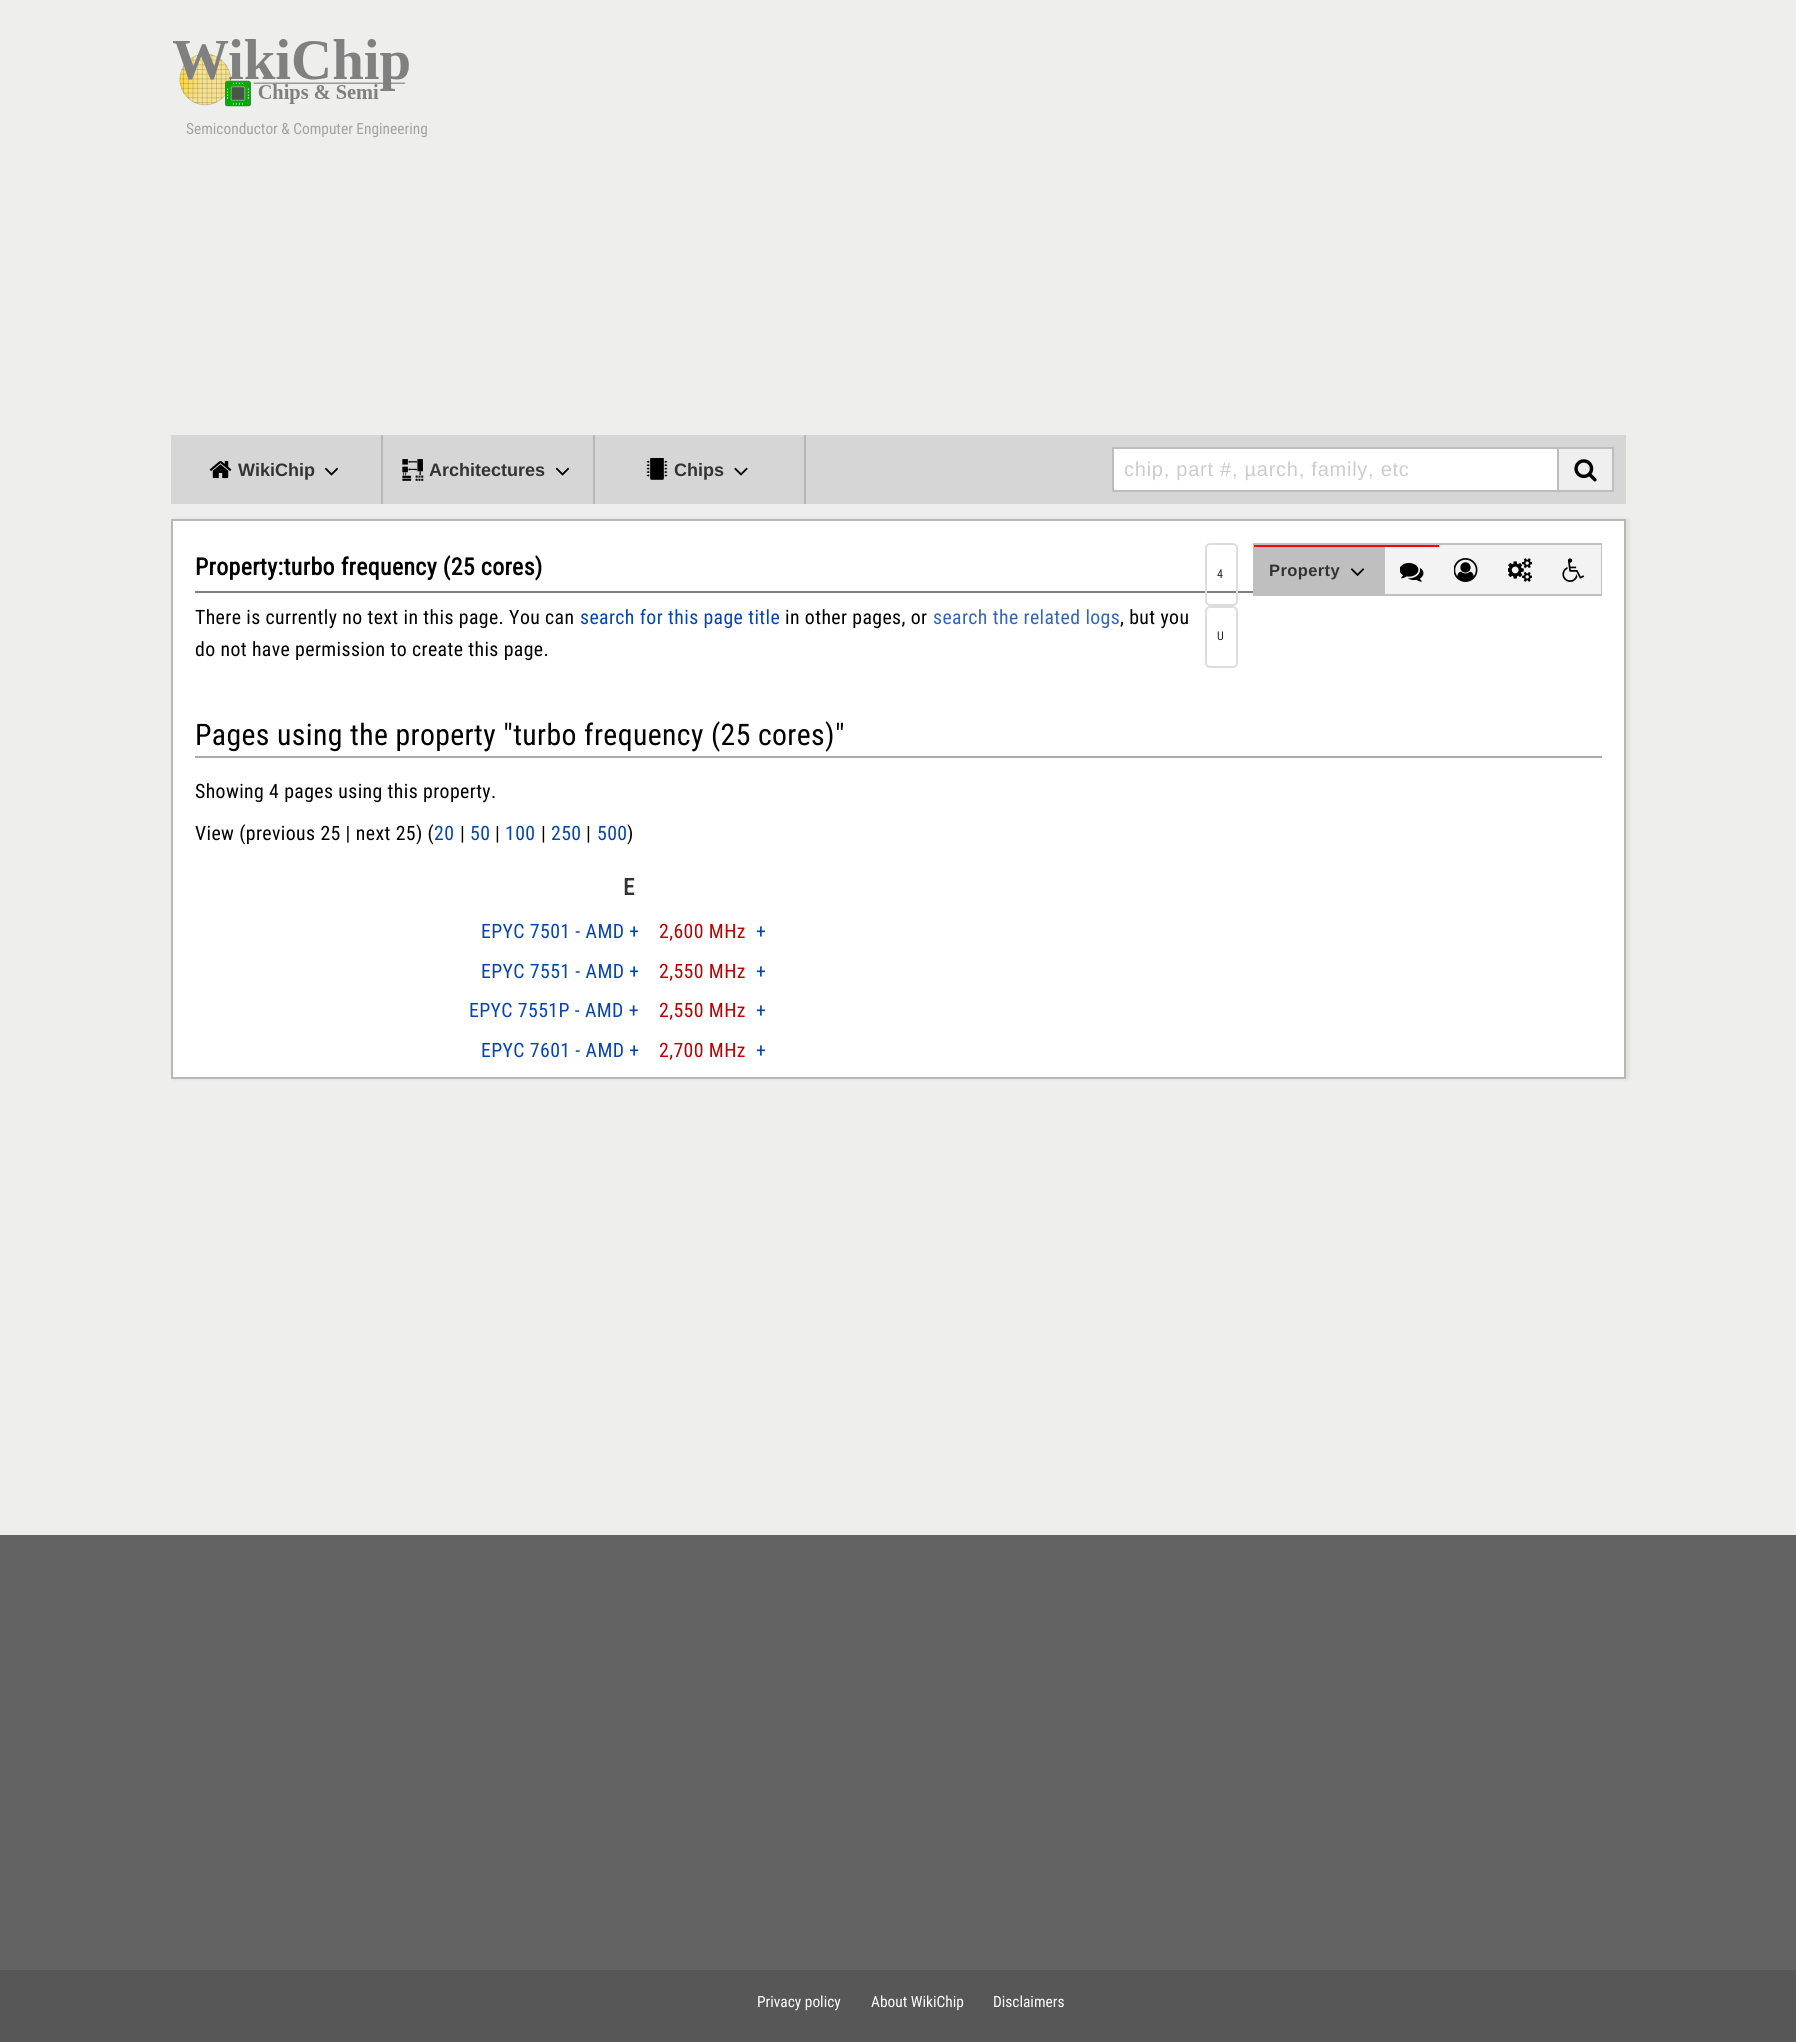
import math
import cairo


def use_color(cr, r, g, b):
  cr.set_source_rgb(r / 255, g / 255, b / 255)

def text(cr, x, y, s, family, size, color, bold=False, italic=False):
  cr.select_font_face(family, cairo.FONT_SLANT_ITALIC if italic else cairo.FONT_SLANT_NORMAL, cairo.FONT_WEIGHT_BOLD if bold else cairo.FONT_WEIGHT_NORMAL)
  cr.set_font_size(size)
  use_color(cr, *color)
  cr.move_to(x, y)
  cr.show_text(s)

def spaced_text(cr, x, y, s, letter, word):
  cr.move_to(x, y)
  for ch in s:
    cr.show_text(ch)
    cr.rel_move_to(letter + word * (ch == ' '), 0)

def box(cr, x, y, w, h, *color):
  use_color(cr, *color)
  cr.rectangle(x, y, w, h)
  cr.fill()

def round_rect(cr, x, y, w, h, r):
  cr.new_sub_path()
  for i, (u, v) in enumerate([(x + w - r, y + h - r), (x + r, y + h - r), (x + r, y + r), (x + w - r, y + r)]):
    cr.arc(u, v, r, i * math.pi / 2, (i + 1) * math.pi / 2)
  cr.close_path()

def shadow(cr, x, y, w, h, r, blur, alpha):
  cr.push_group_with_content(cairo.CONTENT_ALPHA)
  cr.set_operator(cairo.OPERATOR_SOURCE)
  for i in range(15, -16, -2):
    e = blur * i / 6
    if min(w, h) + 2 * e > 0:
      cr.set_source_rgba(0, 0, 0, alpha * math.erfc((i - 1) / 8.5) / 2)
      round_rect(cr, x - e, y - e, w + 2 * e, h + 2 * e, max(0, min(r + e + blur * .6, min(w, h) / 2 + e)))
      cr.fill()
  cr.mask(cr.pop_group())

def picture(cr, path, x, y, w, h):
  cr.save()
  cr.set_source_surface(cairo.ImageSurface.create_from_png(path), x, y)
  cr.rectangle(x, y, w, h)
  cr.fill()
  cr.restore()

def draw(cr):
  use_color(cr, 238, 238, 237)
  cr.paint()
  picture(cr, "img_01.png", 173, 39, 236, 68)
  box(cr, 171, 435, 1455, 69, 214, 214, 214)
  box(cr, 381, 435, 2, 69, 183, 183, 183)
  picture(cr, "img_02.png", 209, 460, 23, 19)
  picture(cr, "img_03.png", 324, 467, 15, 9)
  box(cr, 593, 435, 2, 69, 183, 183, 183)
  picture(cr, "img_04.png", 402, 459, 22, 22)
  picture(cr, "img_03.png", 555, 467, 15, 9)
  box(cr, 804, 435, 2, 69, 183, 183, 183)
  picture(cr, "img_05.png", 646, 458, 22, 22)
  picture(cr, "img_06.png", 734, 467, 14, 9)
  box(cr, 1114, 449, 443, 41, 255, 255, 255)
  cr.rectangle(1113, 448, 448, 43)
  use_color(cr, 189, 189, 189)
  cr.stroke()
  use_color(cr, 239, 239, 239)
  cr.rectangle(1558, 448, 55, 43)
  cr.fill_preserve()
  use_color(cr, 189, 189, 189)
  cr.stroke()
  picture(cr, "img_07.png", 1574, 459, 23, 23)
  use_color(cr, 0, 0, 0)
  shadow(cr, 174, 519, 1455, 560, 0, 2, 0.07)
  use_color(cr, 255, 255, 255)
  cr.rectangle(172, 520, 1453, 558)
  cr.fill_preserve()
  use_color(cr, 183, 183, 183)
  cr.stroke()
  box(cr, 195, 591, 1058, 2, 128, 128, 128)
  round_rect(cr, 1206, 544, 31, 61, 4)
  use_color(cr, 221, 221, 221)
  cr.stroke()
  round_rect(cr, 1206, 607, 31, 60, 4)
  cr.stroke()
  cr.rectangle(1254, 544, 347, 51)
  use_color(cr, 192, 192, 192)
  cr.stroke()
  box(cr, 1385, 545, 216, 49, 243, 243, 243)
  box(cr, 1255, 547, 130, 47, 191, 191, 191)
  box(cr, 1254, 545, 185, 2, 255, 0, 0)
  picture(cr, "img_08.png", 1350, 568, 15, 8)
  picture(cr, "img_09.png", 1400, 562, 24, 20)
  picture(cr, "img_10.png", 1454, 558, 24, 24)
  picture(cr, "img_11.png", 1508, 558, 24, 24)
  picture(cr, "img_12.png", 1562, 558, 23, 24)
  box(cr, 195, 756, 1407, 2, 170, 170, 170)
  box(cr, 0, 1535, 1796, 435, 99, 99, 99)
  box(cr, 0, 1970, 1796, 72, 87, 87, 87)
  text(cr, 186, 134, "Semiconductor & Computer Engineering", "Roboto Condensed", 15.4, (163, 163, 163))
  text(cr, 238, 476, "WikiChip", "Liberation Sans", 18, (51, 51, 51), bold=True)
  text(cr, 429, 476, "Architectures", "Liberation Sans", 18, (51, 51, 51), bold=True)
  text(cr, 674, 476, "Chips", "Liberation Sans", 18, (51, 51, 51), bold=True)
  cr.select_font_face("Liberation Sans")
  cr.set_font_size(20)
  use_color(cr, 204, 204, 204)
  spaced_text(cr, 1124, 476, "chip, part #, µarch, family, etc", 0.75, 0)
  cr.select_font_face("Roboto Condensed", cairo.FONT_SLANT_NORMAL, cairo.FONT_WEIGHT_BOLD)
  cr.set_font_size(23.75)
  use_color(cr, 0, 0, 0)
  spaced_text(cr, 195, 575, "Property:turbo frequency (25 cores)", 0.4, 0)
  cr.select_font_face("Roboto Condensed")
  cr.set_font_size(12)
  use_color(cr, 41, 43, 44)
  spaced_text(cr, 1217, 578, "4", 0.4, 0)
  spaced_text(cr, 1217, 640, "U", 0.4, 0)
  cr.select_font_face("Liberation Sans", cairo.FONT_SLANT_NORMAL, cairo.FONT_WEIGHT_BOLD)
  cr.set_font_size(16.5)
  use_color(cr, 51, 51, 51)
  spaced_text(cr, 1269, 576, "Property", 0.4, 0)
  cr.select_font_face("Roboto Condensed")
  cr.set_font_size(19.75)
  use_color(cr, 0, 0, 0)
  spaced_text(cr, 195, 624, "There is currently no text in this page. You can", 0.4, 0)
  use_color(cr, 6, 69, 173)
  spaced_text(cr, 580, 624, "search for this page title", 0.4, 0)
  use_color(cr, 0, 0, 0)
  spaced_text(cr, 785, 624, "in other pages, or", 0.4, 0)
  use_color(cr, 51, 102, 187)
  spaced_text(cr, 933, 624, "search the related logs", 0.4, 0)
  use_color(cr, 0, 0, 0)
  spaced_text(cr, 1120, 624, ", but you", 0.4, 0)
  spaced_text(cr, 195, 656, "do not have permission to create this page.", 0.4, 0)
  cr.set_font_size(29.7)
  spaced_text(cr, 195, 745, "Pages using the property \"turbo frequency (25 cores)\"", 0.4, 0)
  cr.set_font_size(19.75)
  spaced_text(cr, 195, 798, "Showing 4 pages using this property.", 0.4, 0)
  spaced_text(cr, 195, 840, "View (previous 25 | next 25) (", 0.4, 0)
  use_color(cr, 6, 69, 173)
  spaced_text(cr, 434, 840, "20", 0.4, 0)
  use_color(cr, 0, 0, 0)
  spaced_text(cr, 460, 840, "|", 0.4, 0)
  use_color(cr, 6, 69, 173)
  spaced_text(cr, 470, 840, "50", 0.4, 0)
  use_color(cr, 0, 0, 0)
  spaced_text(cr, 495, 840, "|", 0.4, 0)
  use_color(cr, 6, 69, 173)
  spaced_text(cr, 505, 840, "100", 0.4, 0)
  use_color(cr, 0, 0, 0)
  spaced_text(cr, 541, 840, "|", 0.4, 0)
  use_color(cr, 6, 69, 173)
  spaced_text(cr, 551, 840, "250", 0.4, 0)
  use_color(cr, 0, 0, 0)
  spaced_text(cr, 586, 840, "|", 0.4, 0)
  use_color(cr, 6, 69, 173)
  spaced_text(cr, 597, 840, "500", 0.4, 0)
  use_color(cr, 0, 0, 0)
  spaced_text(cr, 627, 840, ")", 0.4, 0)
  cr.select_font_face("Roboto Condensed", cairo.FONT_SLANT_NORMAL, cairo.FONT_WEIGHT_BOLD)
  cr.set_font_size(23)
  use_color(cr, 51, 51, 51)
  spaced_text(cr, 623, 895, "E", 0.4, 0)
  cr.select_font_face("Roboto Condensed")
  cr.set_font_size(19.75)
  use_color(cr, 6, 69, 173)
  spaced_text(cr, 481, 938, "EPYC 7501 - AMD +", 0.4, 0)
  use_color(cr, 186, 0, 0)
  spaced_text(cr, 659, 938, "2,600 MHz", 0.4, 0)
  use_color(cr, 6, 69, 173)
  spaced_text(cr, 756, 938, "+", 0.4, 0)
  spaced_text(cr, 481, 978, "EPYC 7551 - AMD +", 0.4, 0)
  use_color(cr, 186, 0, 0)
  spaced_text(cr, 659, 978, "2,550 MHz", 0.4, 0)
  use_color(cr, 6, 69, 173)
  spaced_text(cr, 756, 978, "+", 0.4, 0)
  spaced_text(cr, 469, 1017, "EPYC 7551P - AMD +", 0.4, 0)
  use_color(cr, 186, 0, 0)
  spaced_text(cr, 659, 1017, "2,550 MHz", 0.4, 0)
  use_color(cr, 6, 69, 173)
  spaced_text(cr, 756, 1017, "+", 0.4, 0)
  spaced_text(cr, 481, 1057, "EPYC 7601 - AMD +", 0.4, 0)
  use_color(cr, 186, 0, 0)
  spaced_text(cr, 659, 1057, "2,700 MHz", 0.4, 0)
  use_color(cr, 6, 69, 173)
  spaced_text(cr, 756, 1057, "+", 0.4, 0)
  text(cr, 757, 2007, "Privacy policy", "Roboto Condensed", 15.4, (255, 255, 255))
  text(cr, 871, 2007, "About WikiChip", "Roboto Condensed", 15.4, (255, 255, 255))
  text(cr, 993, 2007, "Disclaimers", "Roboto Condensed", 15.4, (255, 255, 255))


surface = cairo.ImageSurface(cairo.FORMAT_RGB24, 1796, 2042)
cr = cairo.Context(surface)
options = cairo.FontOptions()
options.set_hint_metrics(cairo.HINT_METRICS_OFF)
options.set_hint_style(cairo.HINT_STYLE_NONE)
cr.set_font_options(options)
cr.set_miter_limit(4)
draw(cr)
surface.write_to_png("out.png")
